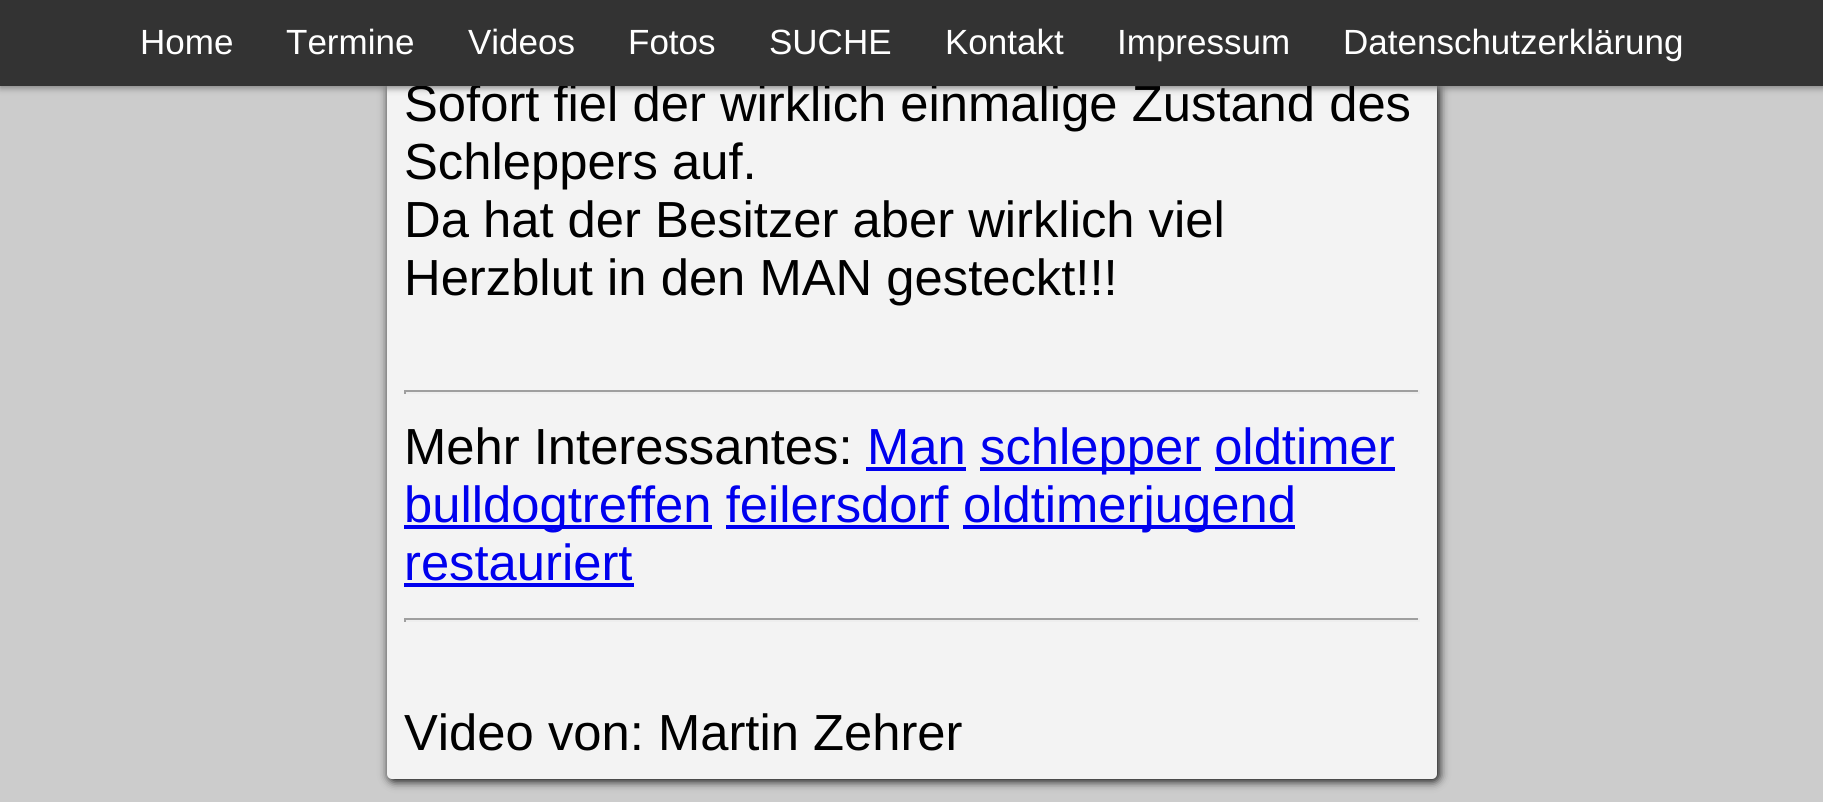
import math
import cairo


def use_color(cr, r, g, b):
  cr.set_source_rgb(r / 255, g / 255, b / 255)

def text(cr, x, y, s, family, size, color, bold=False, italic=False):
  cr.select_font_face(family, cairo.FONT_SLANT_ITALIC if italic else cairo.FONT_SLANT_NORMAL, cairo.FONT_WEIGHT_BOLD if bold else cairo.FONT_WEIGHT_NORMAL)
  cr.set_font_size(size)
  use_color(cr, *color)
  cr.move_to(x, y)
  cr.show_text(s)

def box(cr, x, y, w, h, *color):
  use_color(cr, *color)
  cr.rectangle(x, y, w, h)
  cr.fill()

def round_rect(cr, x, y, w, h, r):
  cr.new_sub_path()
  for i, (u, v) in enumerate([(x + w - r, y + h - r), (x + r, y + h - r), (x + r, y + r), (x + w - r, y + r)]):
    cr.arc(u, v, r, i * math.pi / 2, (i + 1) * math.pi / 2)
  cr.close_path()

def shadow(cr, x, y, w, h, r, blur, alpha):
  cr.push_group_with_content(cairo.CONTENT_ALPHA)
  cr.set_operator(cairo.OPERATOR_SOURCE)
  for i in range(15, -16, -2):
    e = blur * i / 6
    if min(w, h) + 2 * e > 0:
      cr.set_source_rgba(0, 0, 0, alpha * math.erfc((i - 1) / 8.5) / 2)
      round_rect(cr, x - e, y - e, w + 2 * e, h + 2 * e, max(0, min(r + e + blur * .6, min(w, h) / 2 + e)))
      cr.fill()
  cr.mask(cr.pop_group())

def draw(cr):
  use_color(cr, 204, 204, 204)
  cr.paint()
  use_color(cr, 0, 0, 0)
  shadow(cr, 389, -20, 1050, 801, 5, 5, 1)
  use_color(cr, 243, 243, 243)
  round_rect(cr, 387, -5, 1050, 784, 5)
  cr.fill()
  use_color(cr, 128, 128, 128)
  shadow(cr, 0, 2, 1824, 86, 0, 3.5, 1)
  box(cr, 404, 390, 1015, 2, 159, 159, 159)
  box(cr, 1418, 390, 2, 4, 238, 238, 238)
  box(cr, 404, 392, 1015, 2, 238, 238, 238)
  box(cr, 404, 390, 2, 4, 159, 159, 159)
  box(cr, 866, 467, 100, 4, 0, 0, 238)
  box(cr, 980, 467, 221, 4, 0, 0, 238)
  box(cr, 1215, 467, 180, 4, 0, 0, 238)
  box(cr, 404, 525, 308, 4, 0, 0, 238)
  box(cr, 963, 525, 332, 4, 0, 0, 238)
  box(cr, 726, 525, 223, 4, 0, 0, 238)
  box(cr, 404, 583, 230, 4, 0, 0, 238)
  box(cr, 404, 618, 1015, 2, 159, 159, 159)
  box(cr, 1418, 618, 2, 4, 238, 238, 238)
  box(cr, 404, 620, 1015, 2, 238, 238, 238)
  box(cr, 404, 618, 2, 4, 159, 159, 159)
  text(cr, 404, 121, "Sofort fiel der wirklich einmalige Zustand des", "Liberation Sans", 50.75, (0, 0, 0))
  box(cr, 0, 0, 1823, 86, 51, 51, 51)
  text(cr, 1343, 54, "Datenschutzerklärung", "Liberation Sans", 35, (255, 255, 255))
  text(cr, 1117, 54, "Impressum", "Liberation Sans", 35, (255, 255, 255))
  text(cr, 945, 54, "Kontakt", "Liberation Sans", 35, (255, 255, 255))
  text(cr, 769, 54, "SUCHE", "Liberation Sans", 35, (255, 255, 255))
  text(cr, 628, 54, "Fotos", "Liberation Sans", 35, (255, 255, 255))
  text(cr, 468, 54, "Videos", "Liberation Sans", 35, (255, 255, 255))
  text(cr, 286, 54, "Termine", "Liberation Sans", 35, (255, 255, 255))
  text(cr, 140, 54, "Home", "Liberation Sans", 35, (255, 255, 255))
  text(cr, 404, 179, "Schleppers auf.", "Liberation Sans", 50.75, (0, 0, 0))
  text(cr, 404, 237, "Da hat der Besitzer aber wirklich viel", "Liberation Sans", 50.75, (0, 0, 0))
  text(cr, 404, 295, "Herzblut in den MAN gesteckt!!!", "Liberation Sans", 50.75, (0, 0, 0))
  text(cr, 404, 464, "Mehr Interessantes:", "Liberation Sans", 50.75, (0, 0, 0))
  text(cr, 867, 464, "Man", "Liberation Sans", 50.75, (0, 0, 238))
  text(cr, 980, 464, "schlepper oldtimer", "Liberation Sans", 50.75, (0, 0, 238))
  text(cr, 404, 522, "bulldogtreffen feilersdorf", "Liberation Sans", 50.75, (0, 0, 238))
  text(cr, 963, 522, "oldtimerjugend", "Liberation Sans", 50.75, (0, 0, 238))
  text(cr, 404, 580, "restauriert", "Liberation Sans", 50.75, (0, 0, 238))
  text(cr, 404, 750, "Video von: Martin Zehrer", "Liberation Sans", 50.75, (0, 0, 0))


surface = cairo.ImageSurface(cairo.FORMAT_RGB24, 1823, 802)
cr = cairo.Context(surface)
options = cairo.FontOptions()
options.set_hint_metrics(cairo.HINT_METRICS_OFF)
options.set_hint_style(cairo.HINT_STYLE_NONE)
cr.set_font_options(options)
cr.set_miter_limit(4)
draw(cr)
surface.write_to_png("out.png")
